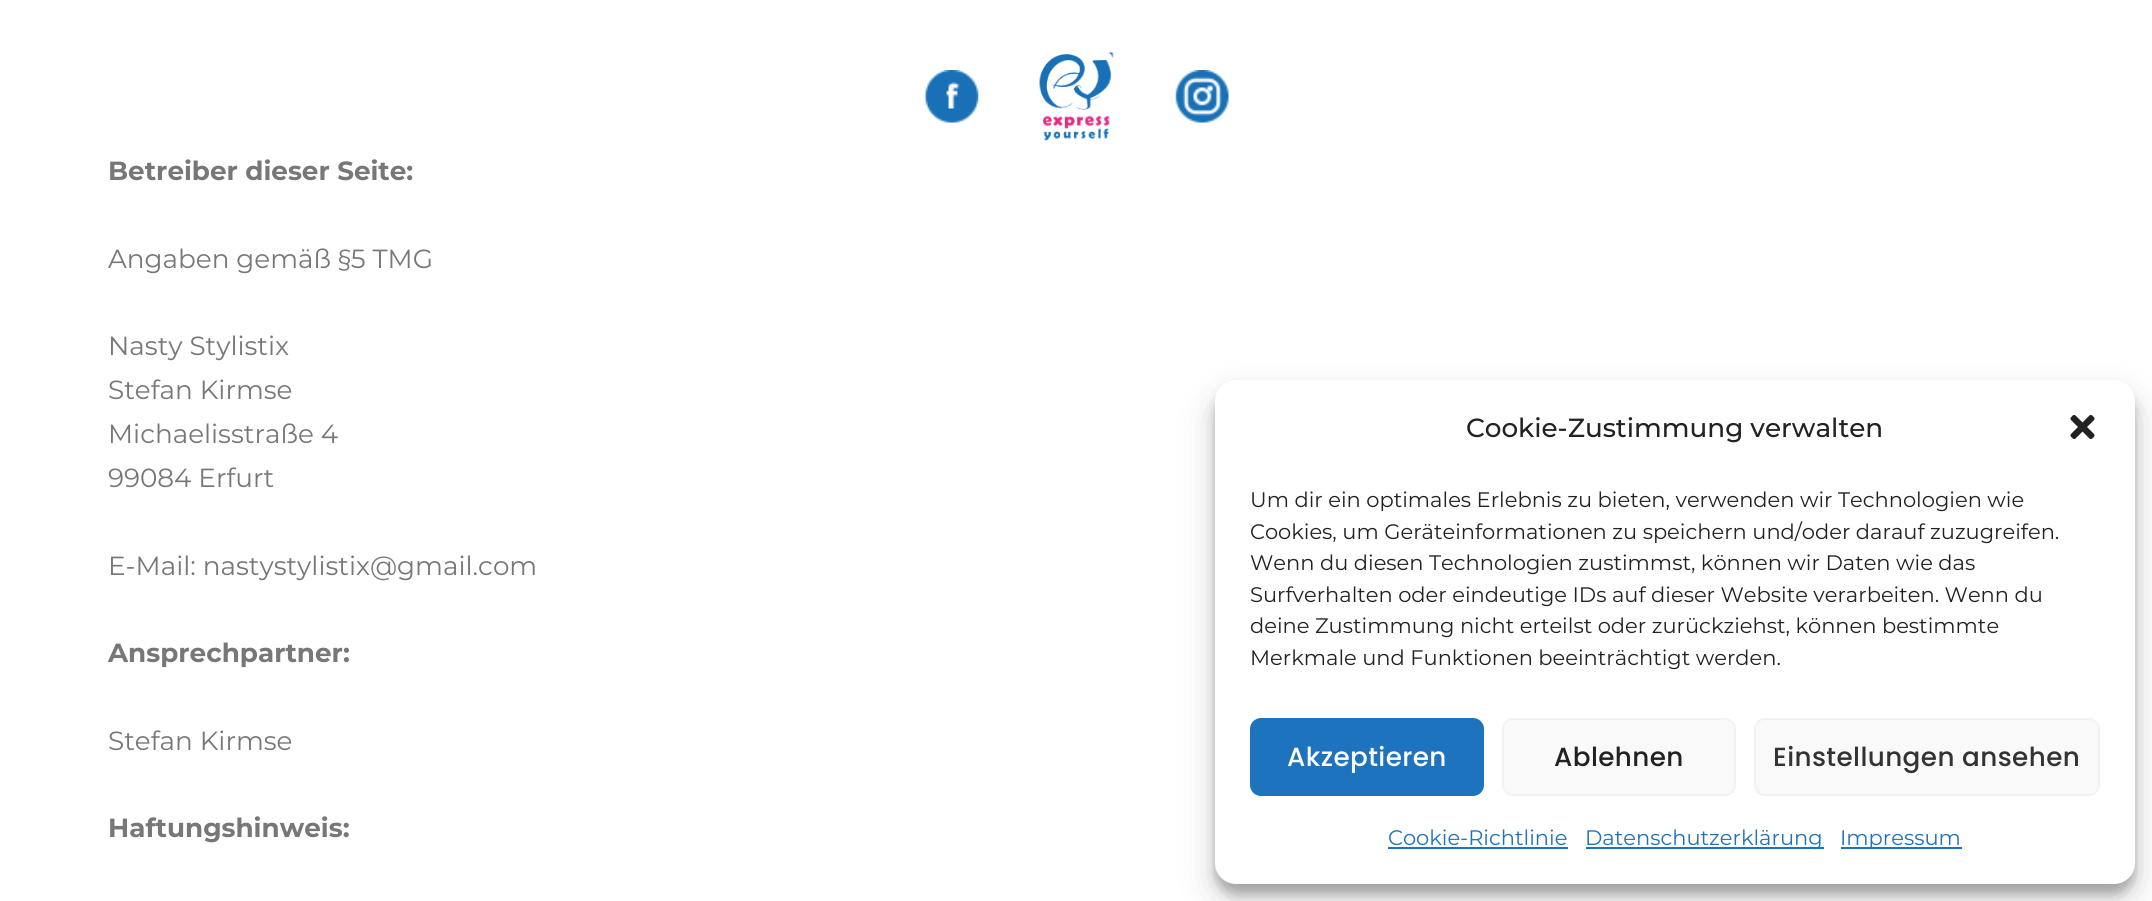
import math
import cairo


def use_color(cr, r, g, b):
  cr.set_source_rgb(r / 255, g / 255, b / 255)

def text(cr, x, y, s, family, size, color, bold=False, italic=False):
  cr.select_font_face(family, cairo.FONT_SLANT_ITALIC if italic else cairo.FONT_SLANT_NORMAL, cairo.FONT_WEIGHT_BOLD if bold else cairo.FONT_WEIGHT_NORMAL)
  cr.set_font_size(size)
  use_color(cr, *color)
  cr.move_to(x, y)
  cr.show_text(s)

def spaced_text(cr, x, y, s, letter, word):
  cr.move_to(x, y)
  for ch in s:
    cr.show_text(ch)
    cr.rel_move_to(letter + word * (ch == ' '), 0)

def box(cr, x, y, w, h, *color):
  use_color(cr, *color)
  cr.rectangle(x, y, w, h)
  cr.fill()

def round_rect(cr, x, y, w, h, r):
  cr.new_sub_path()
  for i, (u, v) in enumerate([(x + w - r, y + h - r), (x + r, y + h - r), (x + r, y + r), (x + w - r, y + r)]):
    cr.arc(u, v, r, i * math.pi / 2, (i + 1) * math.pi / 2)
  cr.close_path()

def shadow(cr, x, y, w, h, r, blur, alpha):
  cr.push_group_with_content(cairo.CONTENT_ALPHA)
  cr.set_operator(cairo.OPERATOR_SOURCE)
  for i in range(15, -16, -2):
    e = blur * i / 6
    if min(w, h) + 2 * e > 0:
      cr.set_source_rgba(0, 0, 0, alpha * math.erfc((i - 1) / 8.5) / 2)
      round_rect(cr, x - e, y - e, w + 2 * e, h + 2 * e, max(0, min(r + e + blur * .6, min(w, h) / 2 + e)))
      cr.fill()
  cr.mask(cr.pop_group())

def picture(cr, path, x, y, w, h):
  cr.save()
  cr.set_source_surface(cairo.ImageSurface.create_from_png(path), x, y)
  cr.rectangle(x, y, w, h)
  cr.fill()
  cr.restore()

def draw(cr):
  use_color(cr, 255, 255, 255)
  cr.paint()
  picture(cr, "img_01.png", 1039, 52, 75, 89)
  picture(cr, "img_02.png", 924, 70, 55, 53)
  picture(cr, "img_03.png", 1175, 70, 54, 53)
  use_color(cr, 0, 0, 0)
  shadow(cr, 1215, 390, 920, 504, 21, 5, 0.23)
  shadow(cr, 1215, 397, 920, 504, 21, 17.5, 0.19)
  use_color(cr, 255, 255, 255)
  round_rect(cr, 1215, 380, 920, 504, 21)
  cr.fill()
  picture(cr, "img_04.png", 2070, 415, 25, 24)
  use_color(cr, 30, 115, 190)
  round_rect(cr, 1251, 719, 232, 76, 10)
  cr.fill_preserve()
  cr.stroke()
  use_color(cr, 249, 249, 249)
  round_rect(cr, 1503, 719, 232, 76, 10)
  cr.fill_preserve()
  use_color(cr, 242, 242, 242)
  cr.stroke()
  use_color(cr, 249, 249, 249)
  round_rect(cr, 1755, 719, 344, 76, 10)
  cr.fill_preserve()
  use_color(cr, 242, 242, 242)
  cr.stroke()
  box(cr, 1388, 847, 180, 2, 30, 115, 190)
  box(cr, 1586, 847, 238, 2, 30, 115, 190)
  box(cr, 1841, 847, 121, 2, 30, 115, 190)
  text(cr, 108, 180, "Betreiber dieser Seite:", "Montserrat", 26.25, (119, 119, 119), bold=True)
  text(cr, 108, 268, "Angaben gemäß §5 TMG", "Montserrat", 26.25, (119, 119, 119))
  text(cr, 108, 355, "Nasty Stylistix", "Montserrat", 26.25, (119, 119, 119))
  text(cr, 108, 399, "Stefan Kirmse", "Montserrat", 26.25, (119, 119, 119))
  text(cr, 108, 443, "Michaelisstraße 4", "Montserrat", 26.25, (119, 119, 119))
  text(cr, 108, 487, "99084 Erfurt", "Montserrat", 26.25, (119, 119, 119))
  text(cr, 108, 575, "E-Mail: nastystylistix@gmail.com", "Montserrat", 26.25, (119, 119, 119))
  text(cr, 108, 662, "Ansprechpartner:", "Montserrat", 26.25, (119, 119, 119), bold=True)
  text(cr, 108, 750, "Stefan Kirmse", "Montserrat", 26.25, (119, 119, 119))
  text(cr, 108, 837, "Haftungshinweis:", "Montserrat", 26.25, (119, 119, 119), bold=True)
  text(cr, 1466, 437, "Cookie-Zustimmung verwalten", "Montserrat Medium", 26.25, (34, 34, 34))
  text(cr, 1250, 507, "Um dir ein optimales Erlebnis zu bieten, verwenden wir Technologien wie", "Montserrat", 21, (34, 34, 34))
  text(cr, 1250, 539, "Cookies, um Geräteinformationen zu speichern und/oder darauf zuzugreifen.", "Montserrat", 21, (34, 34, 34))
  text(cr, 1250, 570, "Wenn du diesen Technologien zustimmst, können wir Daten wie das", "Montserrat", 21, (34, 34, 34))
  text(cr, 1250, 602, "Surfverhalten oder eindeutige IDs auf dieser Website verarbeiten. Wenn du", "Montserrat", 21, (34, 34, 34))
  text(cr, 1250, 633, "deine Zustimmung nicht erteilst oder zurückziehst, können bestimmte", "Montserrat", 21, (34, 34, 34))
  text(cr, 1250, 665, "Merkmale und Funktionen beeinträchtigt werden.", "Montserrat", 21, (34, 34, 34))
  cr.select_font_face("Poppins Medium")
  cr.set_font_size(26.25)
  use_color(cr, 255, 255, 255)
  spaced_text(cr, 1287, 766, "Akzeptieren", 0.4, 0)
  use_color(cr, 34, 34, 34)
  spaced_text(cr, 1554, 766, "Ablehnen", 0.4, 0)
  use_color(cr, 51, 51, 51)
  spaced_text(cr, 1773, 766, "Einstellungen ansehen", 0.4, 0)
  text(cr, 1388, 845, "Cookie-Richtlinie", "Montserrat", 21, (30, 115, 190))
  text(cr, 1585, 845, "Datenschutzerklärung", "Montserrat", 21, (30, 115, 190))
  text(cr, 1840, 845, "Impressum", "Montserrat", 21, (30, 115, 190))


surface = cairo.ImageSurface(cairo.FORMAT_RGB24, 2152, 901)
cr = cairo.Context(surface)
options = cairo.FontOptions()
options.set_hint_metrics(cairo.HINT_METRICS_OFF)
options.set_hint_style(cairo.HINT_STYLE_NONE)
cr.set_font_options(options)
cr.set_miter_limit(4)
draw(cr)
surface.write_to_png("out.png")
